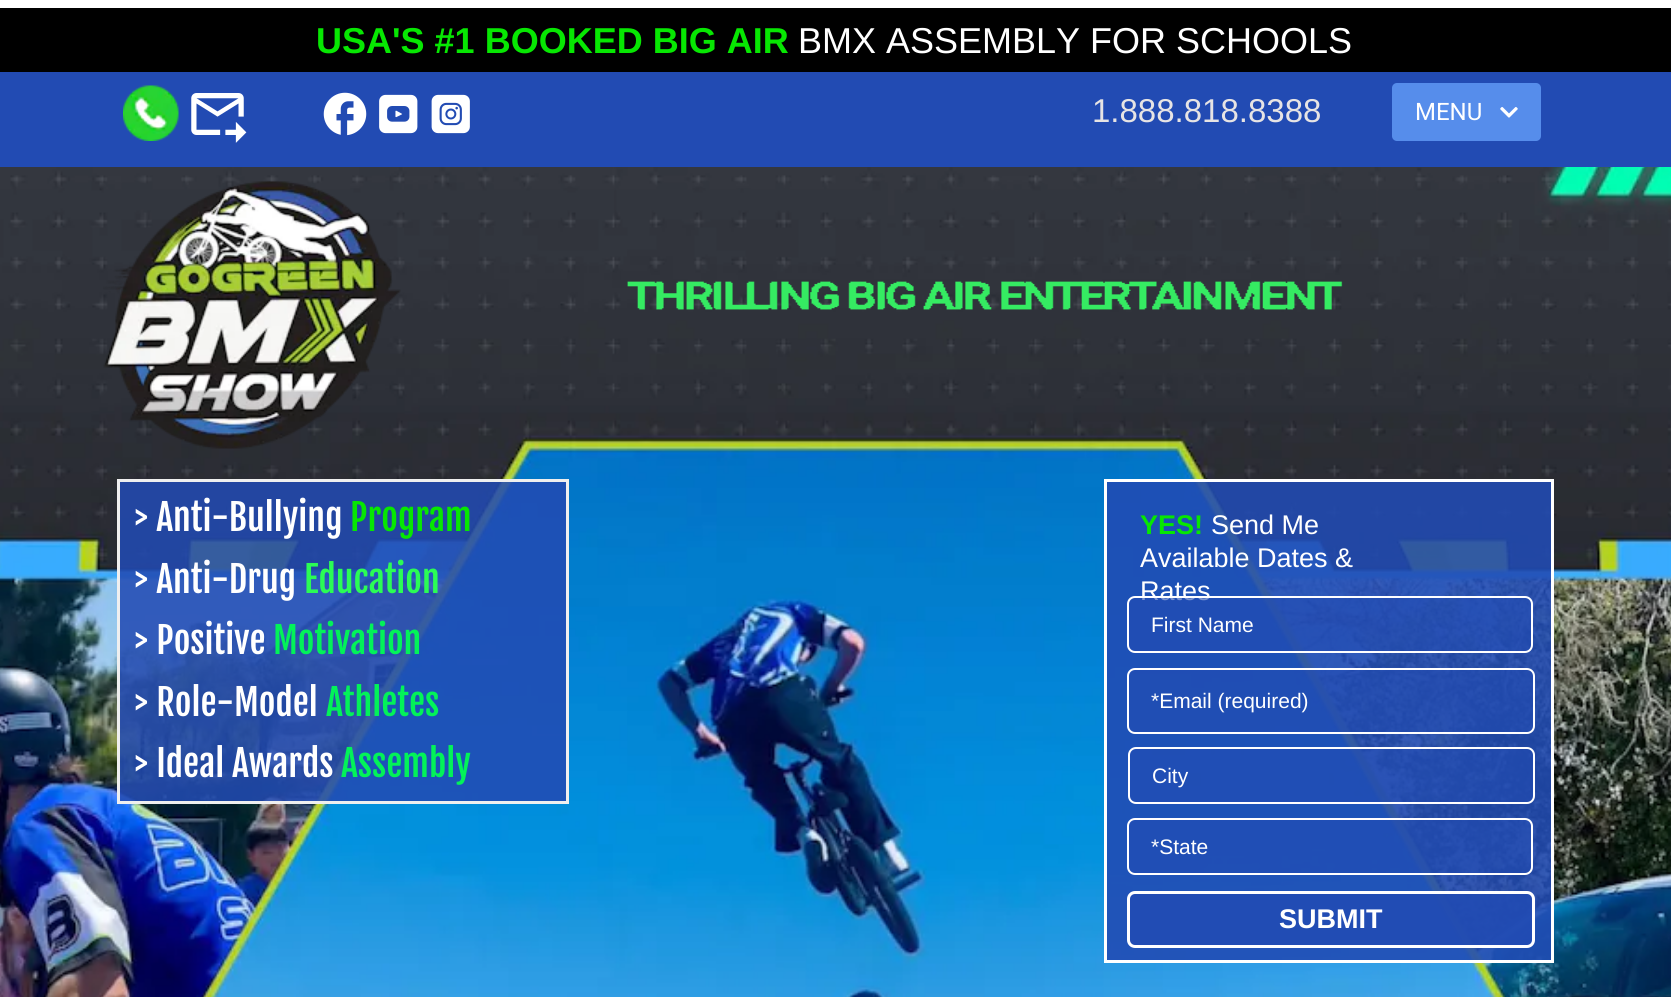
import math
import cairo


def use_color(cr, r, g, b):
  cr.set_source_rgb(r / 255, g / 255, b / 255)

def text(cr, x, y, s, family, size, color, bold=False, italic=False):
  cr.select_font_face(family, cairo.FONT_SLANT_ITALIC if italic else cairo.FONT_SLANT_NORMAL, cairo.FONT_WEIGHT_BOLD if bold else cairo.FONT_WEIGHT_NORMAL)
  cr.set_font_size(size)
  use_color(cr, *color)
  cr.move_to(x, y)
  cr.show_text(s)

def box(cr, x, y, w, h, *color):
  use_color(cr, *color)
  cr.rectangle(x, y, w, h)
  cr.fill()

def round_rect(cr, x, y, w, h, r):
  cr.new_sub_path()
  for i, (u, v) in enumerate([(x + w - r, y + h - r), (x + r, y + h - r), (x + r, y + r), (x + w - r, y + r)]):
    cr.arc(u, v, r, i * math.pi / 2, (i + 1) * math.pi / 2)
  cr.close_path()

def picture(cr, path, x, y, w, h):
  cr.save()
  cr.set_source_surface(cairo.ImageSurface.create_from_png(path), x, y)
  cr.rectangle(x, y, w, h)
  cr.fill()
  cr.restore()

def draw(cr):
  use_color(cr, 255, 255, 255)
  cr.paint()
  box(cr, 0, 72, 1671, 95, 34, 75, 179)
  round_rect(cr, 1368, 59, 204, 106, 5)
  cr.fill()
  box(cr, 0, 8, 1671, 64, 0, 0, 0)
  picture(cr, "img_01.png", 123, 85, 56, 56)
  picture(cr, "img_02.png", 191, 93, 56, 50)
  picture(cr, "img_03.png", 323, 92, 44, 44)
  picture(cr, "img_04.png", 379, 94, 39, 40)
  picture(cr, "img_05.png", 431, 94, 39, 40)
  use_color(cr, 86, 141, 235)
  round_rect(cr, 1392, 83, 149, 58, 5)
  cr.fill()
  picture(cr, "img_06.png", 1500, 107, 18, 11)
  picture(cr, "img_07.png", 0, 167, 1671, 830)
  picture(cr, "img_08.png", 103, 181, 298, 268)
  picture(cr, "img_09.png", 627, 281, 716, 29)
  cr.set_source_rgba(0.133, 0.294, 0.702, 0.86)
  cr.rectangle(118.5, 480.5, 449, 322)
  cr.fill_preserve()
  use_color(cr, 239, 239, 239)
  cr.set_line_width(3)
  cr.stroke()
  cr.set_source_rgba(0.133, 0.294, 0.702, 0.88)
  cr.rectangle(1105.5, 480.5, 447, 481)
  cr.fill_preserve()
  use_color(cr, 255, 255, 255)
  cr.stroke()
  cr.set_source_rgba(0.133, 0.294, 0.702, 0.6)
  round_rect(cr, 1128, 669, 406, 64, 7)
  cr.fill_preserve()
  use_color(cr, 255, 255, 255)
  cr.set_line_width(2)
  cr.stroke()
  cr.set_source_rgba(0.133, 0.294, 0.702, 0.6)
  round_rect(cr, 1129, 748, 405, 55, 7)
  cr.fill_preserve()
  use_color(cr, 255, 255, 255)
  cr.stroke()
  cr.set_source_rgba(0.133, 0.294, 0.702, 0.6)
  round_rect(cr, 1128, 819, 404, 55, 7)
  cr.fill_preserve()
  use_color(cr, 255, 255, 255)
  cr.stroke()
  cr.set_source_rgba(0.133, 0.294, 0.702, 0.88)
  round_rect(cr, 1128.5, 892.5, 405, 54, 6.5)
  cr.fill_preserve()
  use_color(cr, 255, 255, 255)
  cr.set_line_width(3)
  cr.stroke()
  text(cr, 316, 53, "USA'S #1 BOOKED BIG AIR", "Arimo", 36, (7, 231, 2), bold=True)
  text(cr, 798, 53, "BMX ASSEMBLY FOR SCHOOLS", "Arimo", 36, (255, 255, 255))
  text(cr, 1092, 122, "1.888.818.8388", "Liberation Sans", 33, (231, 228, 228))
  text(cr, 1415, 120, "MENU", "Roboto", 24, (255, 255, 255))
  text(cr, 135, 531, "> Anti-Bullying", "Fjalla One", 36, (255, 255, 255))
  text(cr, 350, 531, "Program", "Fjalla One", 36, (7, 231, 2))
  text(cr, 135, 593, "> Anti-Drug", "Fjalla One", 36, (255, 255, 255))
  text(cr, 304, 593, "Education", "Fjalla One", 36, (43, 252, 85))
  text(cr, 135, 654, "> Positive", "Fjalla One", 36, (255, 255, 255))
  text(cr, 273, 654, "Motivation", "Fjalla One", 36, (3, 242, 89))
  text(cr, 135, 716, "> Role-Model", "Fjalla One", 36, (255, 255, 255))
  text(cr, 326, 716, "Athletes", "Fjalla One", 36, (3, 242, 89))
  text(cr, 135, 777, "> Ideal Awards", "Fjalla One", 36, (255, 255, 255))
  text(cr, 341, 777, "Assembly", "Fjalla One", 36, (3, 242, 89))
  text(cr, 1140, 534, "YES!", "Liberation Sans", 27, (7, 231, 2), bold=True)
  text(cr, 1211, 534, "Send Me", "Liberation Sans", 27, (255, 255, 255))
  text(cr, 1140, 567, "Available Dates &", "Liberation Sans", 27, (255, 255, 255))
  text(cr, 1140, 600, "Rates", "Liberation Sans", 27, (255, 255, 255))
  cr.set_source_rgba(0.133, 0.294, 0.702, 0.6)
  round_rect(cr, 1128, 597, 404, 55, 7)
  cr.fill_preserve()
  use_color(cr, 255, 255, 255)
  cr.set_line_width(2)
  cr.stroke()
  text(cr, 1151, 632, "First Name", "Liberation Sans", 21, (255, 255, 255))
  text(cr, 1151, 708, "*Email (required)", "Liberation Sans", 21, (255, 255, 255))
  text(cr, 1152, 783, "City", "Liberation Sans", 21, (255, 255, 255))
  text(cr, 1151, 854, "*State", "Liberation Sans", 21, (255, 255, 255))
  text(cr, 1279, 928, "SUBMIT", "Liberation Sans", 27, (255, 255, 255), bold=True)


surface = cairo.ImageSurface(cairo.FORMAT_RGB24, 1671, 997)
cr = cairo.Context(surface)
options = cairo.FontOptions()
options.set_hint_metrics(cairo.HINT_METRICS_OFF)
options.set_hint_style(cairo.HINT_STYLE_NONE)
cr.set_font_options(options)
cr.set_miter_limit(4)
draw(cr)
surface.write_to_png("out.png")
